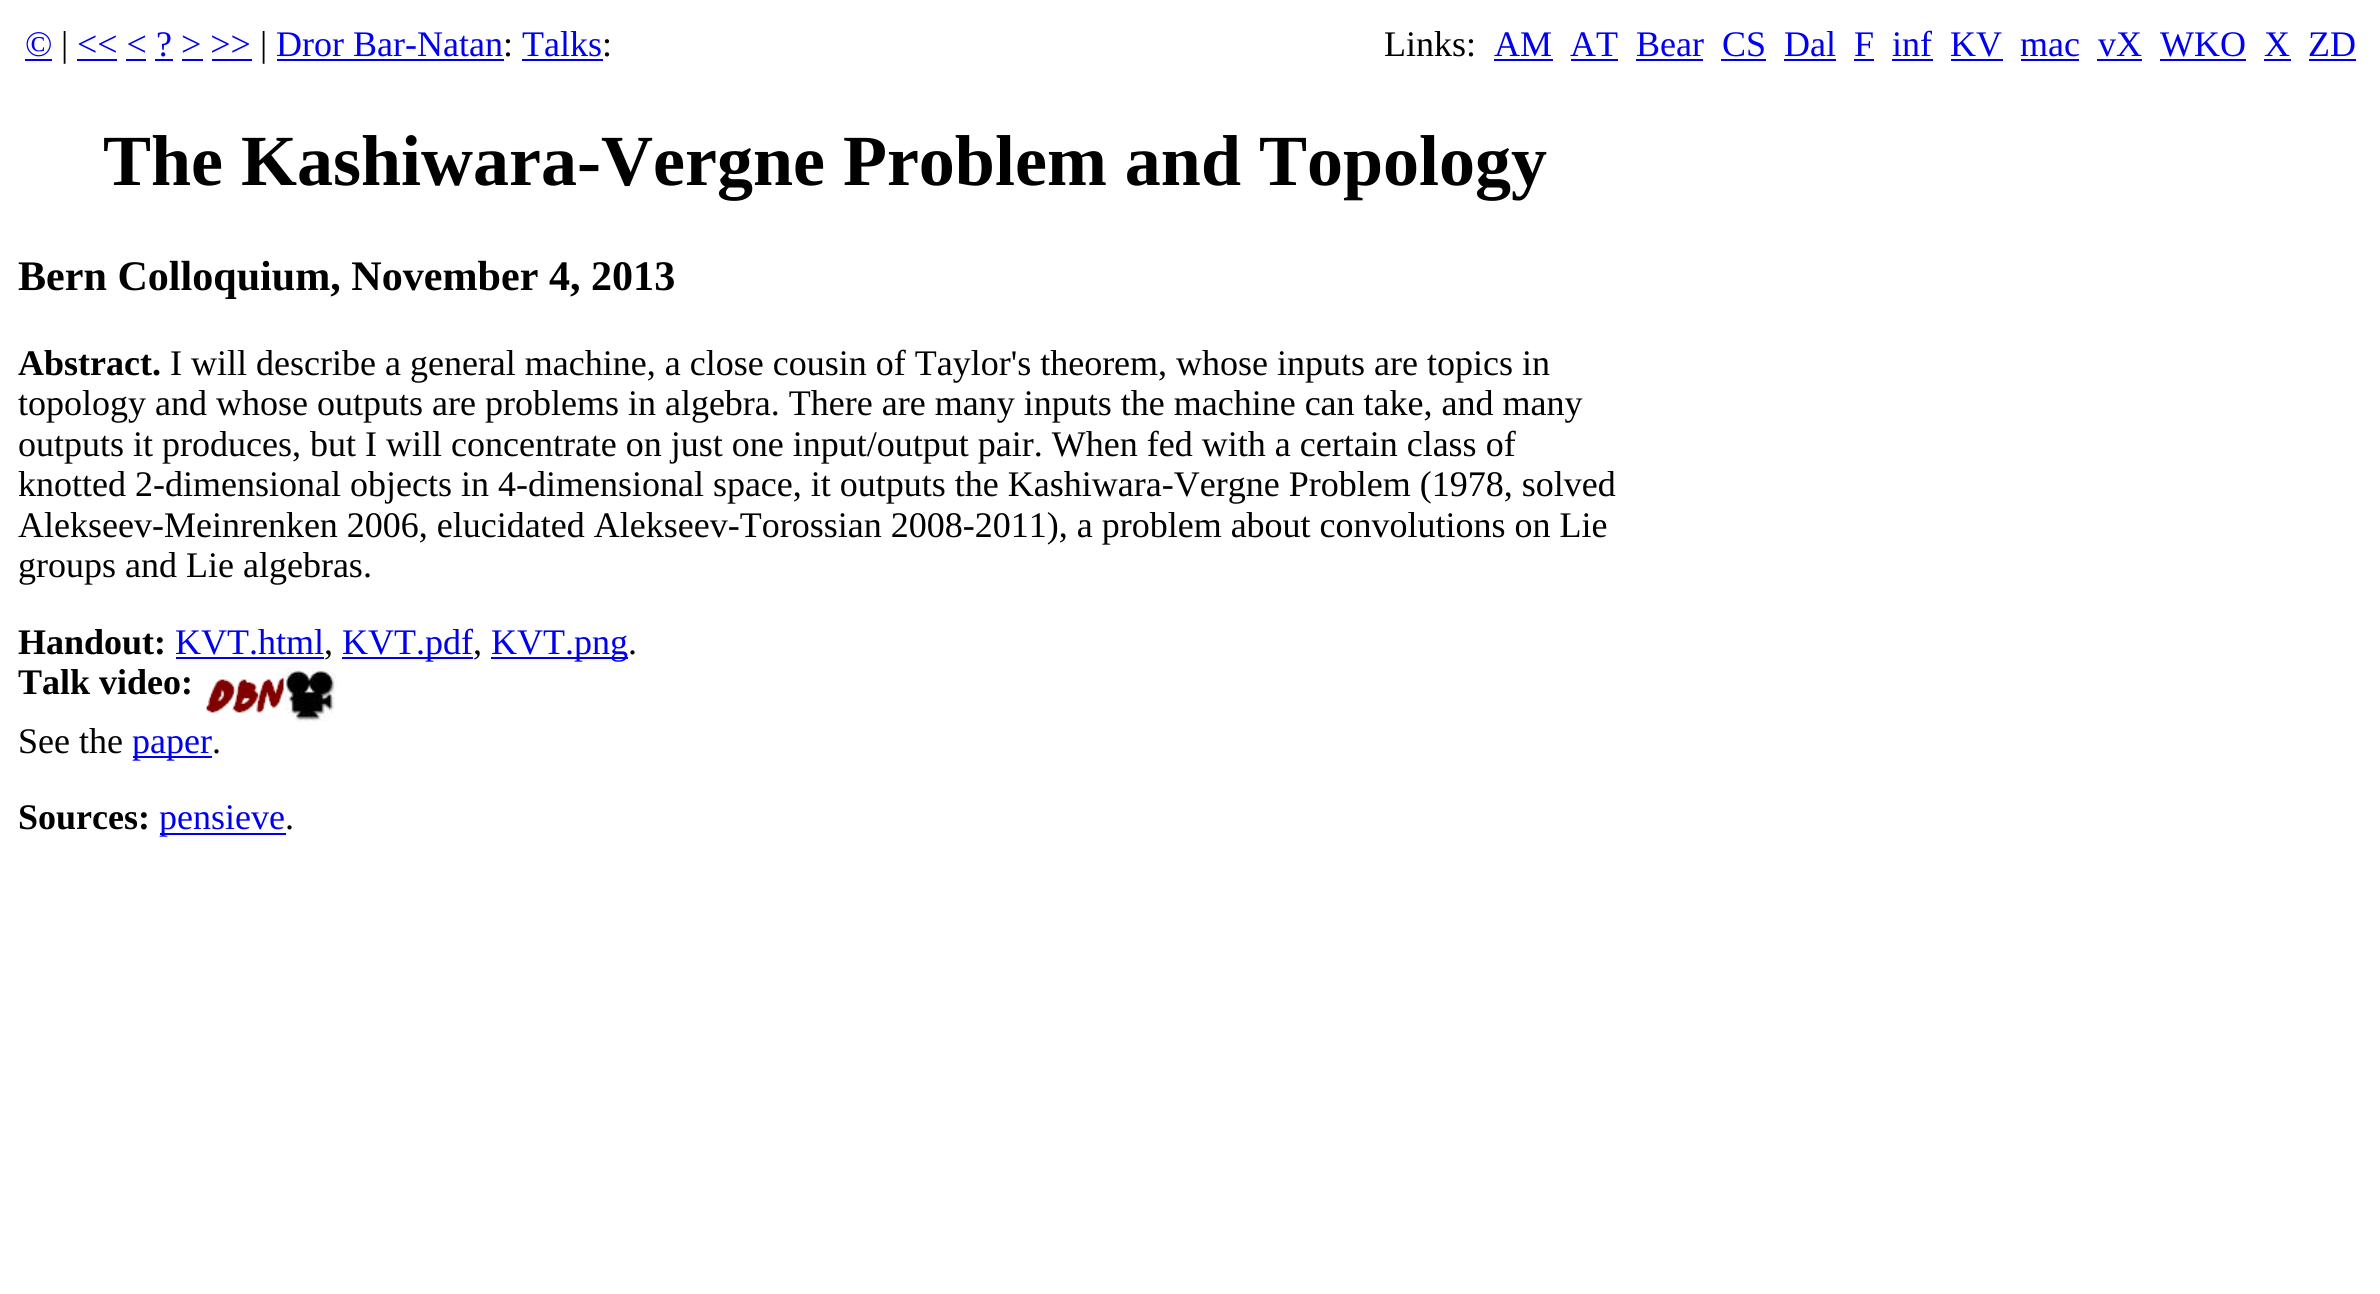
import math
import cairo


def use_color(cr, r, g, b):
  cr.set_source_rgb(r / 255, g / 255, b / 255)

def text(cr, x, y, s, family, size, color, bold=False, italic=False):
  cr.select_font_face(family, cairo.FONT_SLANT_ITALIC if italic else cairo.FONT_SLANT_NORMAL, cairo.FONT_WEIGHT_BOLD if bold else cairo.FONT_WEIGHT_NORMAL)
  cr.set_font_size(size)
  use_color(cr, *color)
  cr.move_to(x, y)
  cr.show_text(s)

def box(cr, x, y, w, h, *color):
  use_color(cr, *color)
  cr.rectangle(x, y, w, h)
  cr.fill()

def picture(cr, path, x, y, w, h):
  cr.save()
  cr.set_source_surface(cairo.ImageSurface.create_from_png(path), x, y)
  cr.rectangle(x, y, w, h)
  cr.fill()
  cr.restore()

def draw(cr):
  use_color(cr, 255, 255, 255)
  cr.paint()
  box(cr, 25, 59, 27, 2, 0, 0, 238)
  box(cr, 77, 59, 40, 2, 0, 0, 238)
  box(cr, 277, 59, 227, 2, 0, 0, 238)
  box(cr, 522, 59, 81, 2, 0, 0, 238)
  box(cr, 126, 59, 20, 2, 0, 0, 238)
  box(cr, 155, 59, 18, 2, 0, 0, 238)
  box(cr, 182, 59, 21, 2, 0, 0, 238)
  box(cr, 212, 59, 40, 2, 0, 0, 238)
  box(cr, 1494, 59, 59, 2, 0, 0, 238)
  box(cr, 1571, 59, 47, 2, 0, 0, 238)
  box(cr, 1636, 59, 67, 2, 0, 0, 238)
  box(cr, 1721, 59, 45, 2, 0, 0, 238)
  box(cr, 1784, 59, 52, 2, 0, 0, 238)
  box(cr, 1854, 59, 20, 2, 0, 0, 238)
  box(cr, 1892, 59, 41, 2, 0, 0, 238)
  box(cr, 1951, 59, 52, 2, 0, 0, 238)
  box(cr, 2021, 59, 58, 2, 0, 0, 238)
  box(cr, 2097, 59, 45, 2, 0, 0, 238)
  box(cr, 2160, 59, 86, 2, 0, 0, 238)
  box(cr, 2264, 59, 27, 2, 0, 0, 238)
  box(cr, 2309, 59, 47, 2, 0, 0, 238)
  box(cr, 176, 657, 148, 2, 0, 0, 238)
  box(cr, 342, 657, 131, 2, 0, 0, 238)
  box(cr, 491, 657, 137, 2, 0, 0, 238)
  picture(cr, "img_01.png", 205, 668, 132, 54)
  box(cr, 133, 756, 79, 2, 0, 0, 238)
  box(cr, 160, 833, 126, 2, 0, 0, 238)
  text(cr, 25, 56, "©", "Liberation Serif", 36, (0, 0, 238))
  text(cr, 61, 56, "|", "Liberation Serif", 36, (0, 0, 0))
  text(cr, 77, 56, "<< < ? > >>", "Liberation Serif", 36, (0, 0, 238))
  text(cr, 260, 56, "|", "Liberation Serif", 36, (0, 0, 0))
  text(cr, 276, 56, "Dror Bar-Natan", "Liberation Serif", 36, (0, 0, 238))
  text(cr, 503, 56, ":", "Liberation Serif", 36, (0, 0, 0))
  text(cr, 522, 56, "Talks", "Liberation Serif", 36, (0, 0, 238))
  text(cr, 602, 56, ":", "Liberation Serif", 36, (0, 0, 0))
  text(cr, 1384, 56, "Links:", "Liberation Serif", 36, (0, 0, 0))
  text(cr, 1494, 56, "AM", "Liberation Serif", 36, (0, 0, 238))
  text(cr, 1570, 56, "AT", "Liberation Serif", 36, (0, 0, 238))
  text(cr, 1636, 56, "Bear", "Liberation Serif", 36, (0, 0, 238))
  text(cr, 1722, 56, "CS", "Liberation Serif", 36, (0, 0, 238))
  text(cr, 1784, 56, "Dal", "Liberation Serif", 36, (0, 0, 238))
  text(cr, 1854, 56, "F", "Liberation Serif", 36, (0, 0, 238))
  text(cr, 1892, 56, "inf", "Liberation Serif", 36, (0, 0, 238))
  text(cr, 1950, 56, "KV", "Liberation Serif", 36, (0, 0, 238))
  text(cr, 2020, 56, "mac", "Liberation Serif", 36, (0, 0, 238))
  text(cr, 2098, 56, "vX", "Liberation Serif", 36, (0, 0, 238))
  text(cr, 2160, 56, "WKO", "Liberation Serif", 36, (0, 0, 238))
  text(cr, 2264, 56, "X", "Liberation Serif", 36, (0, 0, 238))
  text(cr, 2308, 56, "ZD", "Liberation Serif", 36, (0, 0, 238))
  text(cr, 103, 185, "The Kashiwara-Vergne Problem and Topology", "Liberation Serif", 72, (0, 0, 0), bold=True)
  text(cr, 18, 290, "Bern Colloquium, November 4, 2013", "Liberation Serif", 42.1, (0, 0, 0), bold=True)
  text(cr, 18, 375, "Abstract.", "Liberation Serif", 36, (0, 0, 0), bold=True)
  text(cr, 170, 375, "I will describe a general machine, a close cousin of Taylor's theorem, whose inputs are topics in", "Liberation Serif", 36, (0, 0, 0))
  text(cr, 18, 415, "topology and whose outputs are problems in algebra. There are many inputs the machine can take, and many", "Liberation Serif", 36, (0, 0, 0))
  text(cr, 18, 456, "outputs it produces, but I will concentrate on just one input/output pair. When fed with a certain class of", "Liberation Serif", 36, (0, 0, 0))
  text(cr, 18, 496, "knotted 2-dimensional objects in 4-dimensional space, it outputs the Kashiwara-Vergne Problem (1978, solved", "Liberation Serif", 36, (0, 0, 0))
  text(cr, 18, 537, "Alekseev-Meinrenken 2006, elucidated Alekseev-Torossian 2008-2011), a problem about convolutions on Lie", "Liberation Serif", 36, (0, 0, 0))
  text(cr, 18, 577, "groups and Lie algebras.", "Liberation Serif", 36, (0, 0, 0))
  text(cr, 18, 654, "Handout:", "Liberation Serif", 36, (0, 0, 0), bold=True)
  text(cr, 175, 654, "KVT.html", "Liberation Serif", 36, (0, 0, 238))
  text(cr, 324, 654, ",", "Liberation Serif", 36, (0, 0, 0))
  text(cr, 342, 654, "KVT.pdf", "Liberation Serif", 36, (0, 0, 238))
  text(cr, 473, 654, ",", "Liberation Serif", 36, (0, 0, 0))
  text(cr, 491, 654, "KVT.png", "Liberation Serif", 36, (0, 0, 238))
  text(cr, 628, 654, ".", "Liberation Serif", 36, (0, 0, 0))
  text(cr, 18, 694, "Talk video:", "Liberation Serif", 36, (0, 0, 0), bold=True)
  text(cr, 18, 753, "See the", "Liberation Serif", 36, (0, 0, 0))
  text(cr, 132, 753, "paper", "Liberation Serif", 36, (0, 0, 238))
  text(cr, 212, 753, ".", "Liberation Serif", 36, (0, 0, 0))
  text(cr, 18, 829, "Sources:", "Liberation Serif", 36, (0, 0, 0), bold=True)
  text(cr, 159, 829, "pensieve", "Liberation Serif", 36, (0, 0, 238))
  text(cr, 285, 829, ".", "Liberation Serif", 36, (0, 0, 0))


surface = cairo.ImageSurface(cairo.FORMAT_RGB24, 2380, 1294)
cr = cairo.Context(surface)
options = cairo.FontOptions()
options.set_hint_metrics(cairo.HINT_METRICS_OFF)
options.set_hint_style(cairo.HINT_STYLE_NONE)
cr.set_font_options(options)
cr.set_miter_limit(4)
draw(cr)
surface.write_to_png("out.png")
